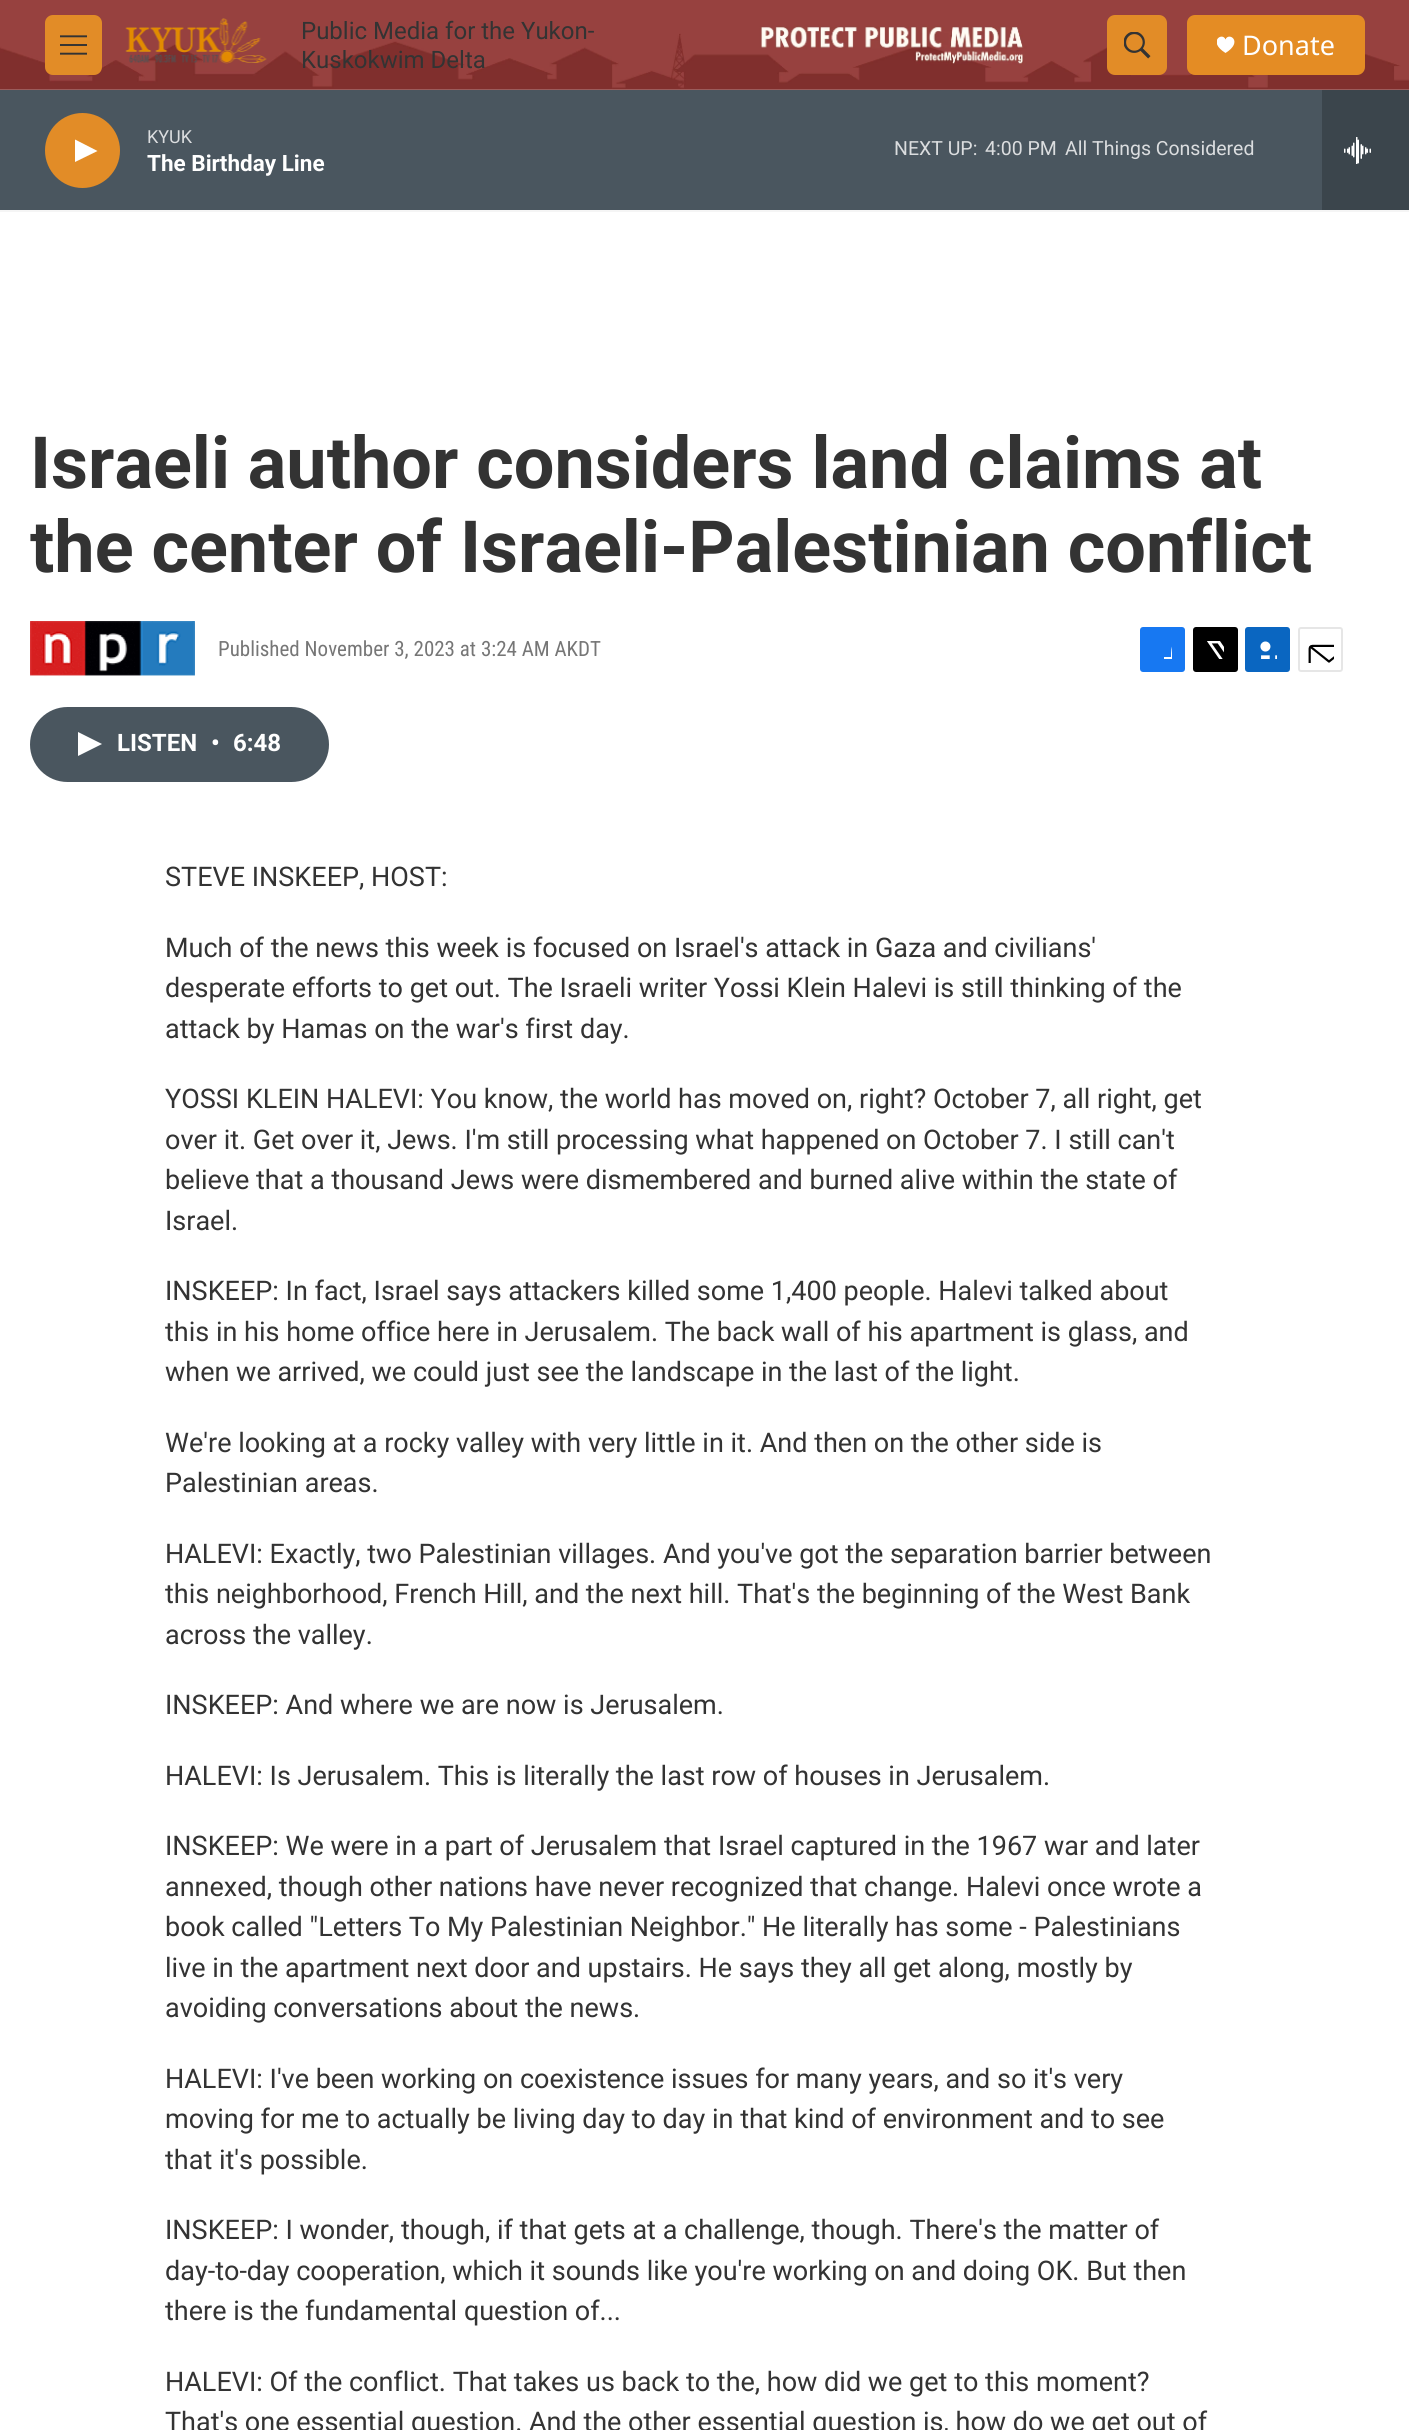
import math
import cairo


def use_color(cr, r, g, b):
  cr.set_source_rgb(r / 255, g / 255, b / 255)

def text(cr, x, y, s, family, size, color, bold=False, italic=False):
  cr.select_font_face(family, cairo.FONT_SLANT_ITALIC if italic else cairo.FONT_SLANT_NORMAL, cairo.FONT_WEIGHT_BOLD if bold else cairo.FONT_WEIGHT_NORMAL)
  cr.set_font_size(size)
  use_color(cr, *color)
  cr.move_to(x, y)
  cr.show_text(s)

def box(cr, x, y, w, h, *color):
  use_color(cr, *color)
  cr.rectangle(x, y, w, h)
  cr.fill()

def round_rect(cr, x, y, w, h, r):
  cr.new_sub_path()
  for i, (u, v) in enumerate([(x + w - r, y + h - r), (x + r, y + h - r), (x + r, y + r), (x + w - r, y + r)]):
    cr.arc(u, v, r, i * math.pi / 2, (i + 1) * math.pi / 2)
  cr.close_path()

def picture(cr, path, x, y, w, h):
  cr.save()
  cr.set_source_surface(cairo.ImageSurface.create_from_png(path), x, y)
  cr.rectangle(x, y, w, h)
  cr.fill()
  cr.restore()

def draw(cr):
  use_color(cr, 255, 255, 255)
  cr.paint()
  box(cr, 0, 210, 1409, 2, 245, 245, 245)
  picture(cr, "img_01.png", 0, 0, 1409, 90)
  use_color(cr, 226, 140, 39)
  round_rect(cr, 45, 15, 57, 60, 8)
  cr.fill()
  picture(cr, "img_02.png", 60, 35, 27, 20)
  picture(cr, "img_03.png", 125, 18, 142, 46)
  round_rect(cr, 1107, 15, 60, 60, 8)
  cr.fill()
  picture(cr, "img_04.png", 1124, 32, 27, 27)
  use_color(cr, 228, 140, 36)
  round_rect(cr, 1187, 15, 178, 60, 8)
  cr.fill()
  cr.save()
  cr.rectangle(1217, 36, 18, 18)
  cr.clip()
  use_color(cr, 255, 255, 255)
  cr.new_path()
  cr.move_to(1225.5, 39.5)
  cr.curve_to(1222.5, 31.5, 1207, 41.5, 1225.5, 53)
  cr.curve_to(1244, 41.5, 1228.5, 31.5, 1225.5, 39.5)
  cr.close_path()
  cr.fill()
  cr.restore()
  box(cr, 0, 90, 1322, 120, 74, 86, 95)
  use_color(cr, 226, 140, 39)
  cr.arc(82.5, 150.5, 37.5, 0, 2 * math.pi)
  cr.fill()
  use_color(cr, 255, 255, 255)
  cr.new_path()
  cr.move_to(75, 139.5)
  cr.line_to(97.5, 151)
  cr.line_to(75, 162)
  cr.close_path()
  cr.fill()
  box(cr, 1322, 90, 87, 120, 59, 69, 76)
  picture(cr, "img_05.png", 1344, 137, 27, 27)
  picture(cr, "img_06.png", 30, 621, 165, 56)
  use_color(cr, 23, 120, 242)
  round_rect(cr, 1140, 627, 45, 45, 3)
  cr.fill()
  cr.save()
  cr.rectangle(1154, 641, 18, 18)
  cr.clip()
  use_color(cr, 255, 255, 255)
  cr.new_path()
  cr.move_to(1178, 672)
  cr.line_to(1171, 672)
  cr.line_to(1171, 665)
  cr.line_to(1164, 665)
  cr.line_to(1164, 657)
  cr.line_to(1171, 657)
  cr.curve_to(1171, 645.5, 1172, 639.5, 1185, 641)
  cr.line_to(1185, 648)
  cr.curve_to(1177, 648, 1178, 650.5, 1178, 657)
  cr.line_to(1185, 657)
  cr.line_to(1184, 665)
  cr.line_to(1178, 665)
  cr.close_path()
  cr.fill()
  cr.restore()
  use_color(cr, 0, 0, 0)
  round_rect(cr, 1193, 627, 45, 45, 3)
  cr.fill()
  picture(cr, "img_07.png", 1207, 641, 17, 18)
  use_color(cr, 10, 102, 193)
  round_rect(cr, 1245, 627, 45, 45, 3)
  cr.fill()
  picture(cr, "img_08.png", 1260, 641, 17, 18)
  round_rect(cr, 1299, 628, 43, 43, 2)
  use_color(cr, 230, 230, 230)
  cr.stroke()
  picture(cr, "img_09.png", 1308, 644, 26, 19)
  use_color(cr, 74, 86, 95)
  round_rect(cr, 30, 707, 299, 75, 37.5)
  cr.fill()
  use_color(cr, 255, 255, 255)
  cr.new_path()
  cr.move_to(78, 732)
  cr.line_to(102, 744)
  cr.line_to(78, 756)
  cr.close_path()
  cr.fill()
  text(cr, 301, 39, "Public Media for the Yukon-", "Roboto", 24, (51, 51, 51))
  text(cr, 301, 68, "Kuskokwim Delta", "Roboto", 24, (51, 51, 51))
  text(cr, 1242, 55, "Donate", "Noto Sans", 27, (255, 255, 255))
  text(cr, 147, 143, "KYUK", "Roboto", 18, (219, 221, 223))
  text(cr, 147, 171, "The Birthday Line", "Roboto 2", 22.5, (255, 255, 255), bold=True)
  text(cr, 894, 155, "NEXT UP:", "Roboto", 19.5, (219, 221, 223))
  text(cr, 985, 155, "4:00 PM", "Roboto", 19.5, (219, 221, 223))
  text(cr, 1065, 155, "All Things Considered", "Roboto", 19.5, (219, 221, 223))
  text(cr, 30, 488, "Israeli author considers land claims at", "Roboto", 72, (51, 51, 51), bold=True)
  text(cr, 30, 572, "the center of Israeli-Palestinian conflict", "Roboto", 72, (51, 51, 51), bold=True)
  text(cr, 218, 656, "Published November 3, 2023 at 3:24 AM AKDT", "Roboto Condensed", 21, (118, 118, 118))
  text(cr, 117, 751, "LISTEN", "Roboto 2", 24, (255, 255, 255), bold=True)
  text(cr, 211, 751, "•", "Roboto 2", 24, (255, 255, 255), bold=True)
  text(cr, 233, 751, "6:48", "Roboto 2", 24, (255, 255, 255), bold=True)
  text(cr, 165, 886, "STEVE INSKEEP, HOST:", "Roboto", 27, (51, 51, 51))
  text(cr, 165, 957, "Much of the news this week is focused on Israel's attack in Gaza and civilians'", "Roboto", 27, (51, 51, 51))
  text(cr, 165, 997, "desperate efforts to get out. The Israeli writer Yossi Klein Halevi is still thinking of the", "Roboto", 27, (51, 51, 51))
  text(cr, 165, 1038, "attack by Hamas on the war's first day.", "Roboto", 27, (51, 51, 51))
  text(cr, 165, 1108, "YOSSI KLEIN HALEVI: You know, the world has moved on, right? October 7, all right, get", "Roboto", 27, (51, 51, 51))
  text(cr, 165, 1149, "over it. Get over it, Jews. I'm still processing what happened on October 7. I still can't", "Roboto", 27, (51, 51, 51))
  text(cr, 165, 1189, "believe that a thousand Jews were dismembered and burned alive within the state of", "Roboto", 27, (51, 51, 51))
  text(cr, 165, 1230, "Israel.", "Roboto", 27, (51, 51, 51))
  text(cr, 165, 1300, "INSKEEP: In fact, Israel says attackers killed some 1,400 people. Halevi talked about", "Roboto", 27, (51, 51, 51))
  text(cr, 165, 1341, "this in his home office here in Jerusalem. The back wall of his apartment is glass, and", "Roboto", 27, (51, 51, 51))
  text(cr, 165, 1381, "when we arrived, we could just see the landscape in the last of the light.", "Roboto", 27, (51, 51, 51))
  text(cr, 165, 1452, "We're looking at a rocky valley with very little in it. And then on the other side is", "Roboto", 27, (51, 51, 51))
  text(cr, 165, 1492, "Palestinian areas.", "Roboto", 27, (51, 51, 51))
  text(cr, 165, 1563, "HALEVI: Exactly, two Palestinian villages. And you've got the separation barrier between", "Roboto", 27, (51, 51, 51))
  text(cr, 165, 1603, "this neighborhood, French Hill, and the next hill. That's the beginning of the West Bank", "Roboto", 27, (51, 51, 51))
  text(cr, 165, 1644, "across the valley.", "Roboto", 27, (51, 51, 51))
  text(cr, 165, 1714, "INSKEEP: And where we are now is Jerusalem.", "Roboto", 27, (51, 51, 51))
  text(cr, 165, 1785, "HALEVI: Is Jerusalem. This is literally the last row of houses in Jerusalem.", "Roboto", 27, (51, 51, 51))
  text(cr, 165, 1855, "INSKEEP: We were in a part of Jerusalem that Israel captured in the 1967 war and later", "Roboto", 27, (51, 51, 51))
  text(cr, 165, 1896, "annexed, though other nations have never recognized that change. Halevi once wrote a", "Roboto", 27, (51, 51, 51))
  text(cr, 165, 1936, "book called \"Letters To My Palestinian Neighbor.\" He literally has some - Palestinians", "Roboto", 27, (51, 51, 51))
  text(cr, 165, 1977, "live in the apartment next door and upstairs. He says they all get along, mostly by", "Roboto", 27, (51, 51, 51))
  text(cr, 165, 2017, "avoiding conversations about the news.", "Roboto", 27, (51, 51, 51))
  text(cr, 165, 2088, "HALEVI: I've been working on coexistence issues for many years, and so it's very", "Roboto", 27, (51, 51, 51))
  text(cr, 165, 2128, "moving for me to actually be living day to day in that kind of environment and to see", "Roboto", 27, (51, 51, 51))
  text(cr, 165, 2169, "that it's possible.", "Roboto", 27, (51, 51, 51))
  text(cr, 165, 2239, "INSKEEP: I wonder, though, if that gets at a challenge, though. There's the matter of", "Roboto", 27, (51, 51, 51))
  text(cr, 165, 2280, "day-to-day cooperation, which it sounds like you're working on and doing OK. But then", "Roboto", 27, (51, 51, 51))
  text(cr, 165, 2320, "there is the fundamental question of...", "Roboto", 27, (51, 51, 51))
  text(cr, 165, 2391, "HALEVI: Of the conflict. That takes us back to the, how did we get to this moment?", "Roboto", 27, (51, 51, 51))
  text(cr, 165, 2431, "That's one essential question. And the other essential question is, how do we get out of", "Roboto", 27, (51, 51, 51))


surface = cairo.ImageSurface(cairo.FORMAT_RGB24, 1409, 2430)
cr = cairo.Context(surface)
options = cairo.FontOptions()
options.set_hint_metrics(cairo.HINT_METRICS_OFF)
options.set_hint_style(cairo.HINT_STYLE_NONE)
cr.set_font_options(options)
cr.set_miter_limit(4)
draw(cr)
surface.write_to_png("out.png")
